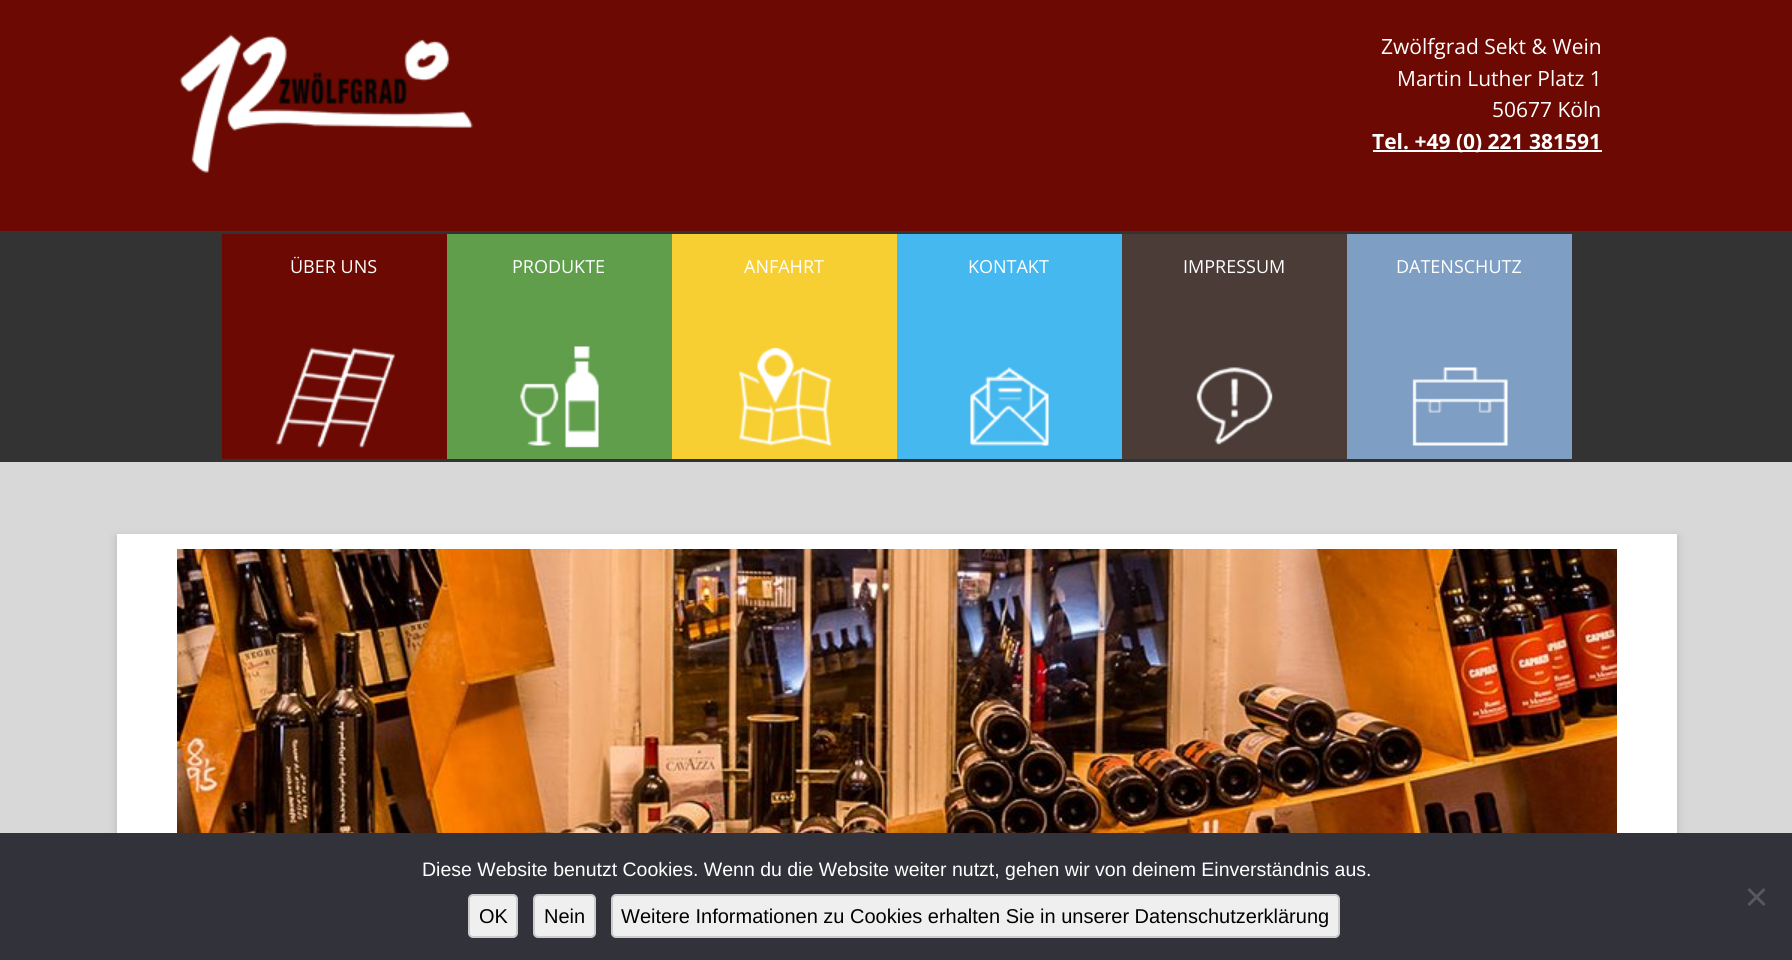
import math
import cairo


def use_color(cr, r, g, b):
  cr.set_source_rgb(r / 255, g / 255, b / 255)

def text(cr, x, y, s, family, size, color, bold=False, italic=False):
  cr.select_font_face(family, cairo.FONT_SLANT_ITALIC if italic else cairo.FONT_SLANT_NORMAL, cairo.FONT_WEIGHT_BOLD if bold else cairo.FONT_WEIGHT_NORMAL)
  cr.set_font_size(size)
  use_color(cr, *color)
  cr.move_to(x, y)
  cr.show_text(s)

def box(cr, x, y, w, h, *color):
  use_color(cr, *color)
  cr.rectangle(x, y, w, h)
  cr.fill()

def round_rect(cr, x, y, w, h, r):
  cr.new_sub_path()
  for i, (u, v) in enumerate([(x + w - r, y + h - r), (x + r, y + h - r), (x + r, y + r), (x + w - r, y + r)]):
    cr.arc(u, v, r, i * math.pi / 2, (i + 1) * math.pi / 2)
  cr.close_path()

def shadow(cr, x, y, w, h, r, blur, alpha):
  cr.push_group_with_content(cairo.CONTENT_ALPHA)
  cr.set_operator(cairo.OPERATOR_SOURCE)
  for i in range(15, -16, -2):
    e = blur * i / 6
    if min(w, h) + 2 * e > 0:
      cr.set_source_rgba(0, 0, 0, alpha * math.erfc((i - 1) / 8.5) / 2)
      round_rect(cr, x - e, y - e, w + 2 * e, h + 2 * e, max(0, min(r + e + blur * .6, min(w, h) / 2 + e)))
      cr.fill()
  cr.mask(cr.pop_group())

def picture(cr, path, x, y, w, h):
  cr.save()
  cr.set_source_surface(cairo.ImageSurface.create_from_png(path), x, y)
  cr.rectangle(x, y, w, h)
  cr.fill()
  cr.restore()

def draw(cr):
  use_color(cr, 216, 216, 216)
  cr.paint()
  box(cr, 0, 0, 1792, 231, 107, 9, 2)
  picture(cr, "img_01.png", 179, 34, 294, 139)
  box(cr, 1373, 150, 229, 2, 255, 255, 255)
  box(cr, 0, 231, 1792, 231, 51, 51, 51)
  picture(cr, "img_02.png", 222, 234, 225, 225)
  box(cr, 447, 234, 225, 225, 96, 158, 76)
  picture(cr, "img_03.png", 520, 346, 79, 102)
  box(cr, 672, 234, 225, 225, 247, 207, 51)
  picture(cr, "img_04.png", 739, 347, 93, 99)
  box(cr, 897, 234, 225, 225, 69, 184, 239)
  picture(cr, "img_05.png", 970, 367, 79, 79)
  box(cr, 1122, 234, 225, 225, 75, 60, 55)
  picture(cr, "img_06.png", 1196, 367, 77, 78)
  box(cr, 1347, 234, 225, 225, 126, 158, 196)
  picture(cr, "img_07.png", 1412, 367, 96, 79)
  use_color(cr, 100, 100, 100)
  shadow(cr, 117, 537, 1560, 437, 0, 4.5, 0.3)
  box(cr, 117, 534, 1560, 299, 255, 255, 255)
  picture(cr, "img_08.png", 177, 549, 1440, 284)
  box(cr, 0, 833, 1792, 127, 50, 50, 58)
  use_color(cr, 89, 89, 93)
  cr.new_path()
  cr.move_to(1763.5, 888)
  cr.line_to(1765.5, 890)
  cr.line_to(1749.5, 906)
  cr.line_to(1747.5, 904)
  cr.close_path()
  cr.fill()
  cr.new_path()
  cr.move_to(1747.5, 890)
  cr.line_to(1749.5, 888)
  cr.line_to(1765.5, 904)
  cr.line_to(1763.5, 906)
  cr.close_path()
  cr.fill()
  use_color(cr, 239, 239, 239)
  round_rect(cr, 469, 895, 48, 42, 4)
  cr.fill_preserve()
  use_color(cr, 204, 204, 204)
  cr.stroke()
  use_color(cr, 239, 239, 239)
  round_rect(cr, 534, 895, 61, 42, 4)
  cr.fill_preserve()
  use_color(cr, 204, 204, 204)
  cr.stroke()
  use_color(cr, 239, 239, 239)
  round_rect(cr, 612, 895, 727, 42, 4)
  cr.fill_preserve()
  use_color(cr, 204, 204, 204)
  cr.stroke()
  text(cr, 1381, 54, "Zwölfgrad Sekt & Wein", "Open Sans", 21, (255, 255, 255))
  text(cr, 1397, 86, "Martin Luther Platz 1", "Open Sans", 21, (255, 255, 255))
  text(cr, 1492, 117, "50677 Köln", "Open Sans", 21, (255, 255, 255))
  text(cr, 1372, 149, "Tel. +49 (0) 221 381591", "Open Sans", 21, (255, 255, 255), bold=True)
  text(cr, 290, 273, "ÜBER UNS", "Open Sans", 18, (255, 255, 255))
  text(cr, 512, 273, "PRODUKTE", "Open Sans", 18, (255, 255, 255))
  text(cr, 744, 273, "ANFAHRT", "Open Sans", 18, (255, 255, 255))
  text(cr, 968, 273, "KONTAKT", "Open Sans", 18, (255, 255, 255))
  text(cr, 1183, 273, "IMPRESSUM", "Open Sans", 18, (255, 255, 255))
  text(cr, 1396, 273, "DATENSCHUTZ", "Open Sans", 18, (255, 255, 255))
  text(cr, 422, 876, "Diese Website benutzt Cookies. Wenn du die Website weiter nutzt, gehen wir von deinem Einverständnis aus.", "Liberation Sans", 19.5, (255, 255, 255))
  text(cr, 479, 923, "OK", "Liberation Sans", 20, (0, 0, 0))
  text(cr, 544, 923, "Nein", "Liberation Sans", 20, (0, 0, 0))
  text(cr, 621, 923, "Weitere Informationen zu Cookies erhalten Sie in unserer Datenschutzerklärung", "Liberation Sans", 20, (0, 0, 0))


surface = cairo.ImageSurface(cairo.FORMAT_RGB24, 1792, 960)
cr = cairo.Context(surface)
options = cairo.FontOptions()
options.set_hint_metrics(cairo.HINT_METRICS_OFF)
options.set_hint_style(cairo.HINT_STYLE_NONE)
cr.set_font_options(options)
cr.set_miter_limit(4)
draw(cr)
surface.write_to_png("out.png")
